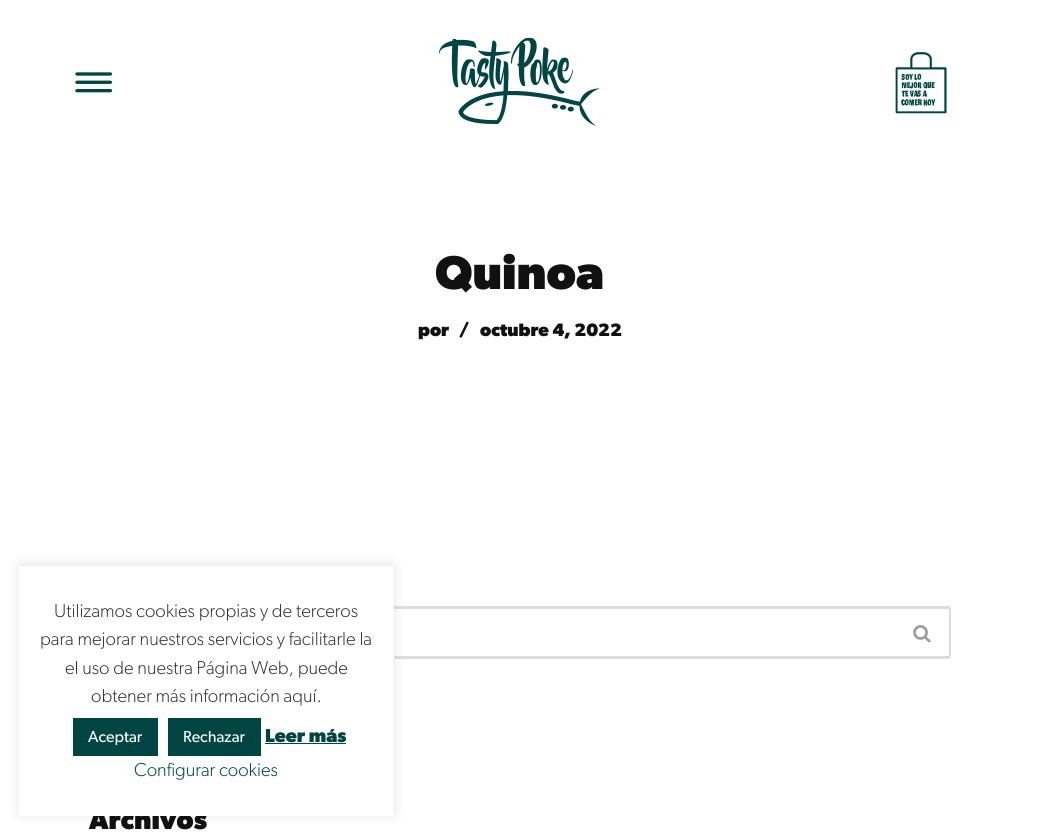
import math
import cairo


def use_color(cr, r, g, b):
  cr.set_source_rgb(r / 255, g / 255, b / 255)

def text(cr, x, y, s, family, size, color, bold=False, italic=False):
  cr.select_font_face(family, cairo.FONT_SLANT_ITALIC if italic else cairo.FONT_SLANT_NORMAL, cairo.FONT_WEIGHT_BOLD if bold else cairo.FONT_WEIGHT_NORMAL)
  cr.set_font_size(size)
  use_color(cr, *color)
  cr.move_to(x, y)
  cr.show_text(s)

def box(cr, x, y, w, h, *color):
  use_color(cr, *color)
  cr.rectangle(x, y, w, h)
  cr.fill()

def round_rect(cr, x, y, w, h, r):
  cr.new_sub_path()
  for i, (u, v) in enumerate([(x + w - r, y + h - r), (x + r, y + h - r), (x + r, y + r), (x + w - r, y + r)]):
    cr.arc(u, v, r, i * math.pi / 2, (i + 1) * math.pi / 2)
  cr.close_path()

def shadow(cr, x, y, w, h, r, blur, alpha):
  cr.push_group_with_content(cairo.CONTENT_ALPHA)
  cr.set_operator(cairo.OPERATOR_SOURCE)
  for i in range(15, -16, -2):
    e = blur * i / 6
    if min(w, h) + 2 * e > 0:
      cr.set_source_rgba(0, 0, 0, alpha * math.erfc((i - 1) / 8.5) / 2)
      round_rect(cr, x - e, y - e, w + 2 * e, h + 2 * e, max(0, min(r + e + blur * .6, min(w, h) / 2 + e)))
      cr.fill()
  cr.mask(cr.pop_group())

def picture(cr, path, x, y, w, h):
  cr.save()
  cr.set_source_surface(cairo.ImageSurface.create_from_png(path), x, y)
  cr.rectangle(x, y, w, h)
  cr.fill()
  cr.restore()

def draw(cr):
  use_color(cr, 255, 255, 255)
  cr.paint()
  picture(cr, "img_01.png", 75, 72, 38, 21)
  picture(cr, "img_02.png", 439, 38, 161, 88)
  picture(cr, "img_03.png", 895, 52, 52, 62)
  use_color(cr, 221, 221, 221)
  cr.set_fill_rule(cairo.FILL_RULE_EVEN_ODD)
  cr.new_path()
  cr.move_to(92, 606)
  cr.line_to(895, 606)
  cr.line_to(895, 659)
  cr.line_to(92, 659)
  cr.curve_to(90, 659, 89, 657, 89, 655)
  cr.line_to(89, 610)
  cr.curve_to(89, 608, 90, 606, 92, 606)
  cr.close_path()
  cr.move_to(92, 609)
  cr.line_to(895, 609)
  cr.line_to(895, 656)
  cr.line_to(92, 656)
  cr.curve_to(92, 656, 91, 656, 91, 655)
  cr.line_to(91, 610)
  cr.curve_to(91, 609, 92, 609, 92, 609)
  cr.close_path()
  cr.fill()
  cr.new_path()
  cr.move_to(895, 606)
  cr.line_to(948, 606)
  cr.curve_to(950, 606, 951, 608, 951, 610)
  cr.line_to(951, 655)
  cr.curve_to(951, 657, 950, 659, 948, 659)
  cr.line_to(895, 659)
  cr.close_path()
  cr.move_to(895, 609)
  cr.line_to(948, 609)
  cr.curve_to(948, 609, 949, 609, 949, 610)
  cr.line_to(949, 655)
  cr.curve_to(949, 656, 948, 656, 948, 656)
  cr.line_to(895, 656)
  cr.close_path()
  cr.fill()
  picture(cr, "img_04.png", 913, 625, 18, 18)
  use_color(cr, 172, 171, 171)
  shadow(cr, 19, 565, 375, 250, 0, 6, 0.3)
  text(cr, 435, 289, "Quinoa", "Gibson", 47.5, (17, 17, 17), bold=True)
  text(cr, 418, 336, "por", "Gibson", 18, (17, 17, 17), bold=True)
  text(cr, 459, 336, "/", "Gibson", 18, (17, 17, 17), bold=True)
  text(cr, 480, 336, "octubre 4, 2022", "Gibson", 18, (17, 17, 17), bold=True)
  text(cr, 89, 829, "Archivos", "Gibson", 27.5, (17, 17, 17), bold=True)
  box(cr, 19, 566, 375, 250, 255, 255, 255)
  text(cr, 54, 617, "Utilizamos cookies propias y de terceros", "Gibson Light", 18.75, (51, 51, 51))
  text(cr, 40, 645, "para mejorar nuestros servicios y facilitarle la", "Gibson Light", 18.75, (51, 51, 51))
  text(cr, 65, 674, "el uso de nuestra Página Web, puede", "Gibson Light", 18.75, (51, 51, 51))
  text(cr, 91, 702, "obtener más información aquí.", "Gibson Light", 18.75, (51, 51, 51))
  box(cr, 73, 718, 85, 38, 0, 69, 66)
  text(cr, 88, 742, "Aceptar", "Gibson", 16, (255, 255, 255))
  box(cr, 168, 718, 93, 38, 0, 69, 66)
  text(cr, 183, 742, "Rechazar", "Gibson", 16, (255, 255, 255))
  text(cr, 265, 742, "Leer más", "Gibson", 18.75, (0, 69, 66), bold=True)
  box(cr, 265, 743, 81, 1, 0, 69, 66)
  text(cr, 134, 776, "Configurar cookies", "Gibson Light", 18.75, (0, 69, 66))


surface = cairo.ImageSurface(cairo.FORMAT_RGB24, 1039, 834)
cr = cairo.Context(surface)
options = cairo.FontOptions()
options.set_hint_metrics(cairo.HINT_METRICS_OFF)
options.set_hint_style(cairo.HINT_STYLE_NONE)
cr.set_font_options(options)
cr.set_miter_limit(4)
draw(cr)
surface.write_to_png("out.png")
